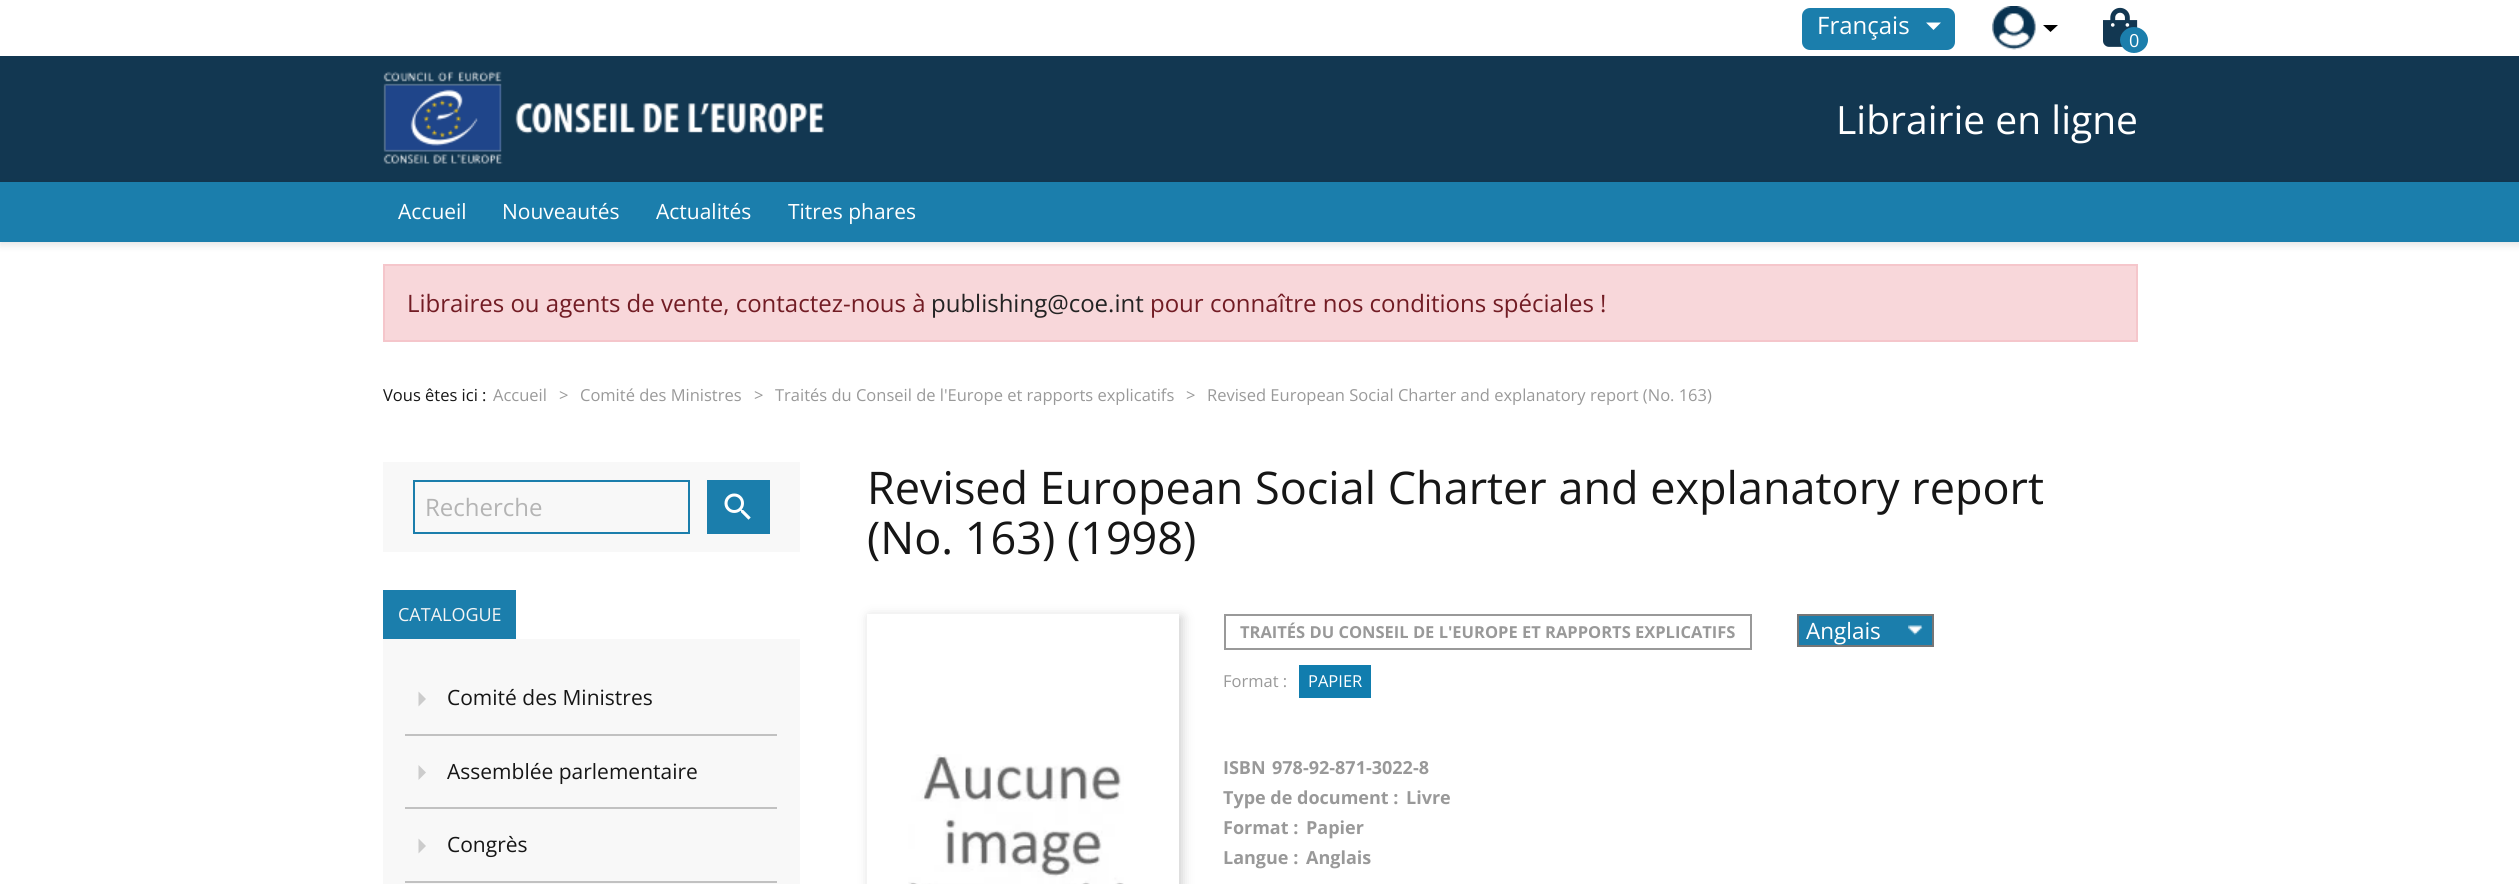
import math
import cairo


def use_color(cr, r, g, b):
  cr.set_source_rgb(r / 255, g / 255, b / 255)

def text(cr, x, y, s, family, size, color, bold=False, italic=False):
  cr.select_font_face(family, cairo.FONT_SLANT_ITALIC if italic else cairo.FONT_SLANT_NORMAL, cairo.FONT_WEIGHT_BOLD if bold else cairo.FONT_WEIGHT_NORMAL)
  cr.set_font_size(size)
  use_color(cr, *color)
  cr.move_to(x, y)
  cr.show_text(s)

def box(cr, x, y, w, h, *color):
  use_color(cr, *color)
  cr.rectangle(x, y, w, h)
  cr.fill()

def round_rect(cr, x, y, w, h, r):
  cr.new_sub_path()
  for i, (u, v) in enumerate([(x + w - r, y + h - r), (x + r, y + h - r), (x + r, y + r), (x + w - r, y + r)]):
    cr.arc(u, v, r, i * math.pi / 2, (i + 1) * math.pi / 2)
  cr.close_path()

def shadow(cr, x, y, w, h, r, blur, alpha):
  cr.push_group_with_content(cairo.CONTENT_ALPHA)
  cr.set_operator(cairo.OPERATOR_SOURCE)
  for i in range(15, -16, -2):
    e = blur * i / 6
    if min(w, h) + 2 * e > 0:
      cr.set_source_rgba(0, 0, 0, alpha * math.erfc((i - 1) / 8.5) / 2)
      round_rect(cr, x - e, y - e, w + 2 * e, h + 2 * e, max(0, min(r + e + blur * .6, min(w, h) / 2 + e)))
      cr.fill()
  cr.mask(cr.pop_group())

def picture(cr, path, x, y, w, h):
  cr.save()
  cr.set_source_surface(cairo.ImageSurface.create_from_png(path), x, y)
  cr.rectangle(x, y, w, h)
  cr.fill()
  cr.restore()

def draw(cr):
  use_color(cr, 255, 255, 255)
  cr.paint()
  use_color(cr, 27, 126, 172)
  round_rect(cr, 1802, 8, 153, 42, 8)
  cr.fill()
  use_color(cr, 255, 255, 255)
  cr.new_path()
  cr.move_to(1926, 22.5)
  cr.line_to(1941, 22.5)
  cr.line_to(1933.5, 30)
  cr.close_path()
  cr.fill()
  picture(cr, "img_01.png", 1992, 6, 44, 44)
  use_color(cr, 0, 0, 0)
  cr.new_path()
  cr.move_to(2043, 25)
  cr.line_to(2058, 25)
  cr.line_to(2050.5, 32)
  cr.close_path()
  cr.fill()
  picture(cr, "img_02.png", 2103, 7, 35, 40)
  use_color(cr, 27, 126, 172)
  cr.new_path()
  cr.move_to(2134, 27)
  cr.curve_to(2141.5, 27, 2148, 33, 2148, 40)
  cr.curve_to(2148, 47, 2141.5, 53, 2134, 53)
  cr.curve_to(2126.5, 53, 2120, 47, 2120, 40)
  cr.curve_to(2120, 33, 2126.5, 27, 2134, 27)
  cr.close_path()
  cr.fill()
  box(cr, 0, 56, 2519, 126, 18, 55, 81)
  picture(cr, "img_03.png", 383, 71, 441, 93)
  use_color(cr, 0, 0, 0)
  shadow(cr, 0, 185, 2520, 60, 0, 4, 0.11)
  box(cr, 0, 182, 2519, 60, 27, 126, 172)
  use_color(cr, 248, 215, 218)
  cr.rectangle(384, 265, 1753, 76)
  cr.fill_preserve()
  use_color(cr, 245, 198, 203)
  cr.stroke()
  box(cr, 383, 462, 417, 90, 248, 248, 248)
  cr.rectangle(414, 481, 275, 52)
  use_color(cr, 27, 126, 172)
  cr.stroke()
  box(cr, 707, 480, 63, 54, 27, 126, 172)
  picture(cr, "img_04.png", 724, 493, 27, 27)
  box(cr, 383, 590, 133, 49, 27, 126, 172)
  box(cr, 383, 639, 417, 245, 248, 248, 248)
  use_color(cr, 204, 204, 204)
  cr.new_path()
  cr.move_to(418.5, 706.5)
  cr.line_to(418.5, 691.5)
  cr.line_to(426, 699)
  cr.close_path()
  cr.fill()
  box(cr, 405, 734, 372, 2, 193, 193, 193)
  use_color(cr, 204, 204, 204)
  cr.new_path()
  cr.move_to(418.5, 780)
  cr.line_to(418.5, 765)
  cr.line_to(426, 772.5)
  cr.close_path()
  cr.fill()
  box(cr, 405, 807, 372, 2, 193, 193, 193)
  use_color(cr, 204, 204, 204)
  cr.new_path()
  cr.move_to(418.5, 853.5)
  cr.line_to(418.5, 838.5)
  cr.line_to(426, 846)
  cr.close_path()
  cr.fill()
  box(cr, 405, 881, 372, 2, 193, 193, 193)
  cr.save()
  cr.set_fill_rule(cairo.FILL_RULE_EVEN_ODD)
  cr.new_path()
  cr.move_to(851, 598)
  cr.line_to(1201, 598)
  cr.line_to(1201, 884)
  cr.line_to(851, 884)
  cr.close_path()
  cr.move_to(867, 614)
  cr.line_to(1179, 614)
  cr.line_to(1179, 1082)
  cr.line_to(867, 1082)
  cr.close_path()
  cr.clip()
  use_color(cr, 0, 0, 0)
  shadow(cr, 870, 617, 312, 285, 0, 6, 0.2)
  cr.restore()
  picture(cr, "img_05.png", 908, 754, 216, 130)
  cr.rectangle(1225, 615, 526, 34)
  use_color(cr, 153, 153, 153)
  cr.stroke()
  box(cr, 1799, 616, 133, 29, 27, 126, 172)
  picture(cr, "img_06.png", 1908, 625, 15, 10)
  cr.rectangle(1798, 615, 135, 31)
  use_color(cr, 118, 118, 118)
  cr.stroke()
  box(cr, 1299, 665, 72, 33, 17, 125, 174)
  text(cr, 1817, 34, "Français", "Open Sans", 24, (255, 255, 255))
  text(cr, 2129, 47, "0", "Open Sans", 18, (255, 255, 255))
  text(cr, 1836, 134, "Librairie en ligne", "Open Sans", 39, (255, 255, 255))
  text(cr, 398, 219, "Accueil", "Open Sans", 21, (255, 255, 255))
  text(cr, 502, 219, "Nouveautés", "Open Sans", 21, (255, 255, 255))
  text(cr, 656, 219, "Actualités", "Open Sans", 21, (255, 255, 255))
  text(cr, 788, 219, "Titres phares", "Open Sans", 21, (255, 255, 255))
  text(cr, 407, 312, "Libraires ou agents de vente, contactez-nous à", "Open Sans", 24, (114, 28, 36))
  text(cr, 931, 312, "publishing@coe.int", "Open Sans", 24, (35, 35, 35))
  text(cr, 1150, 312, "pour connaître nos conditions spéciales !", "Open Sans", 24, (114, 28, 36))
  text(cr, 383, 401, "Vous êtes ici :", "Open Sans", 16.5, (22, 22, 22))
  text(cr, 493, 401, "Accueil", "Open Sans", 16.5, (153, 153, 153))
  text(cr, 559, 401, ">", "Open Sans", 16.5, (153, 153, 153))
  text(cr, 580, 401, "Comité des Ministres", "Open Sans", 16.5, (153, 153, 153))
  text(cr, 754, 401, ">", "Open Sans", 16.5, (153, 153, 153))
  text(cr, 775, 401, "Traités du Conseil de l'Europe et rapports explicatifs", "Open Sans", 16.5, (153, 153, 153))
  text(cr, 1186, 401, ">", "Open Sans", 16.5, (153, 153, 153))
  text(cr, 1207, 401, "Revised European Social Charter and explanatory report (No. 163)", "Open Sans", 16.5, (153, 153, 153))
  text(cr, 425, 516, "Recherche", "Open Sans", 24, (180, 180, 180))
  text(cr, 398, 621, "CATALOGUE", "Open Sans", 18, (245, 245, 245))
  text(cr, 447, 705, "Comité des Ministres", "Open Sans", 21, (22, 22, 22))
  text(cr, 447, 779, "Assemblée parlementaire", "Open Sans", 21, (22, 22, 22))
  text(cr, 447, 852, "Congrès", "Open Sans", 21, (22, 22, 22))
  text(cr, 867, 504, "Revised European Social Charter and explanatory report", "Open Sans", 45, (22, 22, 22))
  text(cr, 867, 554, "(No. 163) (1998)", "Open Sans", 45, (22, 22, 22))
  text(cr, 1240, 638, "TRAITÉS DU CONSEIL DE L'EUROPE ET RAPPORTS EXPLICATIFS", "Open Sans", 16.5, (153, 153, 153), bold=True)
  text(cr, 1806, 639, "Anglais", "Open Sans", 22.5, (255, 255, 255))
  text(cr, 1223, 687, "Format :", "Open Sans", 16.5, (153, 153, 153))
  text(cr, 1308, 687, "PAPIER", "Open Sans", 16.5, (255, 255, 255))
  text(cr, 1223, 774, "ISBN", "Open Sans", 18, (153, 153, 153), bold=True)
  text(cr, 1272, 774, "978-92-871-3022-8", "Open Sans", 18, (153, 153, 153), bold=True)
  text(cr, 1223, 804, "Type de document :", "Open Sans", 18, (153, 153, 153), bold=True)
  text(cr, 1406, 804, "Livre", "Open Sans", 18, (153, 153, 153), bold=True)
  text(cr, 1223, 834, "Format :", "Open Sans", 18, (153, 153, 153), bold=True)
  text(cr, 1306, 834, "Papier", "Open Sans", 18, (153, 153, 153), bold=True)
  text(cr, 1223, 864, "Langue :", "Open Sans", 18, (153, 153, 153), bold=True)
  text(cr, 1306, 864, "Anglais", "Open Sans", 18, (153, 153, 153), bold=True)


surface = cairo.ImageSurface(cairo.FORMAT_RGB24, 2519, 884)
cr = cairo.Context(surface)
options = cairo.FontOptions()
options.set_hint_metrics(cairo.HINT_METRICS_OFF)
options.set_hint_style(cairo.HINT_STYLE_NONE)
cr.set_font_options(options)
cr.set_miter_limit(4)
draw(cr)
surface.write_to_png("out.png")
